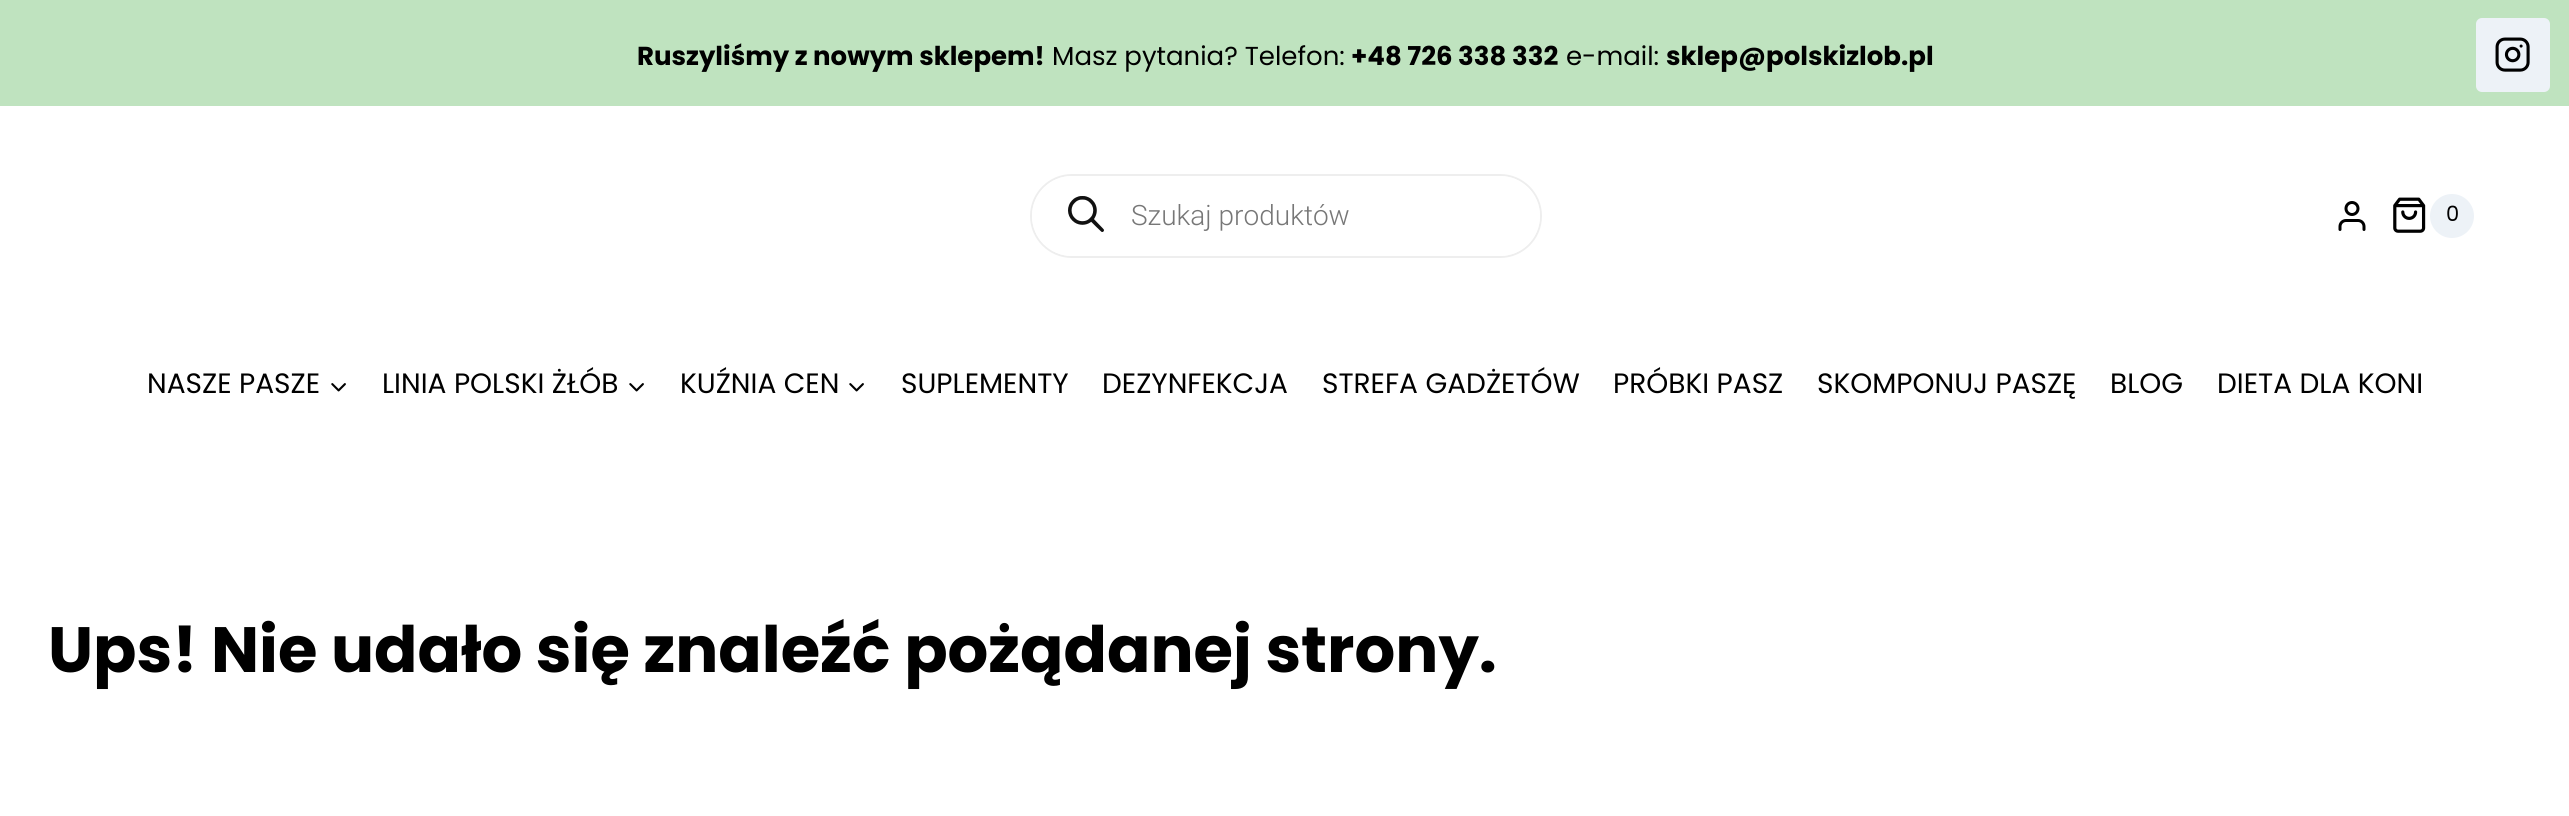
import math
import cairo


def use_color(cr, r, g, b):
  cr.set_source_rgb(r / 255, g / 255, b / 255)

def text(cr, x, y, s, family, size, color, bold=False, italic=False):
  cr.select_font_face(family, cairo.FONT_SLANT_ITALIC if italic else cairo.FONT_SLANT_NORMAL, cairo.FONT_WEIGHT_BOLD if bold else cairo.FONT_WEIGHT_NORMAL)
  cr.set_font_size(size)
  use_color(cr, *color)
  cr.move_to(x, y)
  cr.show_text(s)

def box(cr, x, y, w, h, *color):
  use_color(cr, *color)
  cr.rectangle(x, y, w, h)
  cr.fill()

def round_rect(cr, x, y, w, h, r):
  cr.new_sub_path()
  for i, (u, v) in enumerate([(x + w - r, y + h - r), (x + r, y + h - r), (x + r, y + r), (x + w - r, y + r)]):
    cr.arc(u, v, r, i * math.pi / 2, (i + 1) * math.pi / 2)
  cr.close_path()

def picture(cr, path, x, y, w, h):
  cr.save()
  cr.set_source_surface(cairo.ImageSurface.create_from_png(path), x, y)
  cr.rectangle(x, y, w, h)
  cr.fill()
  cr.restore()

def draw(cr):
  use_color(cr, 255, 255, 255)
  cr.paint()
  box(cr, 0, 0, 2569, 106, 191, 227, 191)
  use_color(cr, 237, 242, 247)
  round_rect(cr, 2476, 18, 74, 74, 6)
  cr.fill()
  picture(cr, "img_01.png", 2495, 37, 35, 35)
  round_rect(cr, 1031, 175, 510, 82, 41)
  use_color(cr, 238, 238, 238)
  cr.stroke()
  use_color(cr, 255, 255, 255)
  round_rect(cr, 1032, 176, 508, 80, 40)
  cr.fill()
  picture(cr, "img_02.png", 1068, 196, 36, 36)
  picture(cr, "img_03.png", 2338, 201, 28, 30)
  picture(cr, "img_04.png", 2393, 197, 33, 36)
  use_color(cr, 237, 242, 247)
  cr.arc(2452, 216, 22, 0, 2 * math.pi)
  cr.fill()
  picture(cr, "img_05.png", 331, 383, 15, 9)
  picture(cr, "img_05.png", 629, 383, 15, 9)
  picture(cr, "img_05.png", 849, 383, 15, 9)
  text(cr, 637, 65, "Ruszyliśmy z nowym sklepem!", "Poppins", 26, (0, 0, 0), bold=True)
  text(cr, 1052, 65, "Masz pytania? Telefon:", "Poppins", 26, (0, 0, 0))
  text(cr, 1351, 65, "+48 726 338 332", "Poppins", 26, (0, 0, 0), bold=True)
  text(cr, 1566, 65, "e-mail:", "Poppins", 26, (0, 0, 0))
  text(cr, 1666, 65, "sklep@polskizlob.pl", "Poppins", 26, (0, 0, 0), bold=True)
  text(cr, 1131, 225, "Szukaj produktów", "Roboto Light", 28, (119, 119, 119))
  text(cr, 2446, 221, "0", "Poppins", 21, (0, 0, 0))
  text(cr, 147, 393, "NASZE PASZE", "Poppins", 28, (0, 0, 0))
  text(cr, 382, 393, "LINIA POLSKI ŻŁÓB", "Poppins", 28, (0, 0, 0))
  text(cr, 680, 393, "KUŹNIA CEN", "Poppins", 28, (0, 0, 0))
  text(cr, 901, 393, "SUPLEMENTY", "Poppins", 28, (0, 0, 0))
  text(cr, 1102, 393, "DEZYNFEKCJA", "Poppins", 28, (0, 0, 0))
  text(cr, 1322, 393, "STREFA GADŻETÓW", "Poppins", 28, (0, 0, 0))
  text(cr, 1613, 393, "PRÓBKI PASZ", "Poppins", 28, (0, 0, 0))
  text(cr, 1817, 393, "SKOMPONUJ PASZĘ", "Poppins", 28, (0, 0, 0))
  text(cr, 2110, 393, "BLOG", "Poppins", 28, (0, 0, 0))
  text(cr, 2217, 393, "DIETA DLA KONI", "Poppins", 28, (0, 0, 0))
  text(cr, 48, 672, "Ups! Nie udało się znaleźć pożądanej strony.", "Poppins", 64, (0, 0, 0), bold=True)


surface = cairo.ImageSurface(cairo.FORMAT_RGB24, 2569, 816)
cr = cairo.Context(surface)
options = cairo.FontOptions()
options.set_hint_metrics(cairo.HINT_METRICS_OFF)
options.set_hint_style(cairo.HINT_STYLE_NONE)
cr.set_font_options(options)
cr.set_miter_limit(4)
draw(cr)
surface.write_to_png("out.png")
